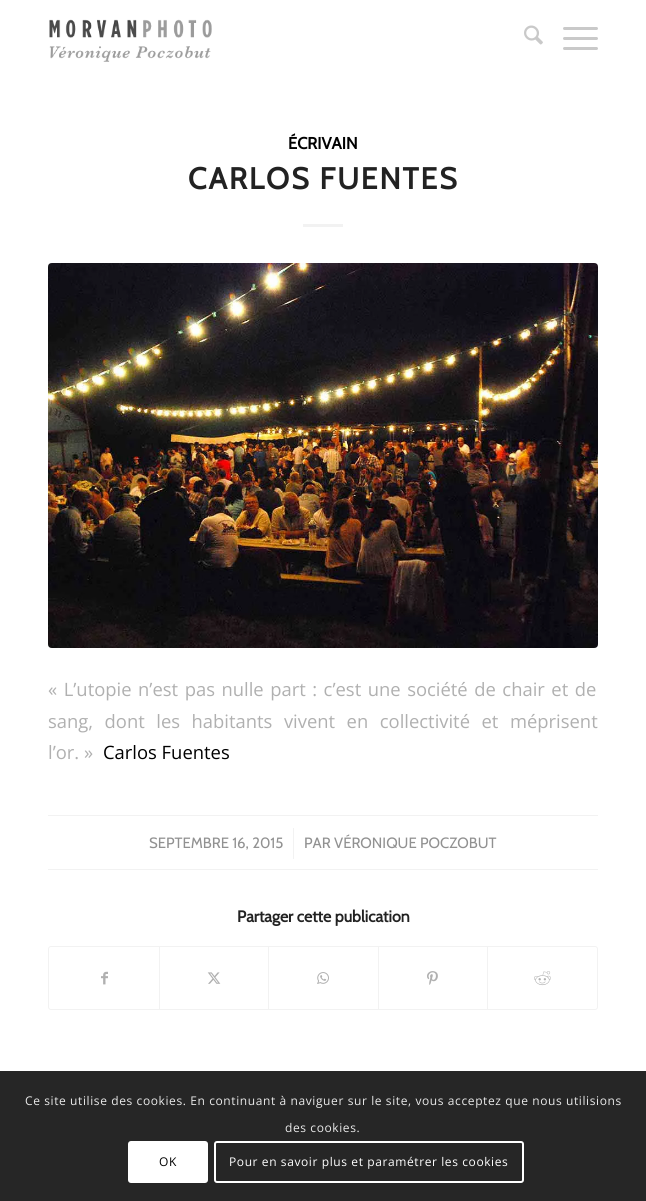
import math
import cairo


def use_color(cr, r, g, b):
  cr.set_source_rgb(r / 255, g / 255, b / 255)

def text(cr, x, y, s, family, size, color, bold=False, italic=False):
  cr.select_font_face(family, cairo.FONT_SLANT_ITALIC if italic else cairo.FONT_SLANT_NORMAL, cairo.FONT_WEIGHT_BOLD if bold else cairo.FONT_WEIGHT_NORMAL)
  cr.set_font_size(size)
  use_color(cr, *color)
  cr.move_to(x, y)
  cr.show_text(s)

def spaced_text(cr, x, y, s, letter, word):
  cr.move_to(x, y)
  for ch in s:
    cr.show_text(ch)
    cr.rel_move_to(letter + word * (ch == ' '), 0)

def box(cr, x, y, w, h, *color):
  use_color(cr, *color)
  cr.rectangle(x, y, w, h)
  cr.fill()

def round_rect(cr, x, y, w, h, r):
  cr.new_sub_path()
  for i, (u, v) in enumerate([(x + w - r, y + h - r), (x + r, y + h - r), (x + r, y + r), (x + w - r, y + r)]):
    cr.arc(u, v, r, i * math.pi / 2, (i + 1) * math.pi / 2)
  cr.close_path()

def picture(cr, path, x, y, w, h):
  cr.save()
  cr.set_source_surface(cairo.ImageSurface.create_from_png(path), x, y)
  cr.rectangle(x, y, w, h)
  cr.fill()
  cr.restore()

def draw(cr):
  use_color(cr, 255, 255, 255)
  cr.paint()
  box(cr, 0, 1071, 646, 130, 38, 38, 38)
  picture(cr, "img_01.png", 49, 19, 163, 43)
  picture(cr, "img_02.png", 524, 25, 19, 20)
  use_color(cr, 201, 201, 201)
  round_rect(cr, 563, 37, 35, 3, 1.5)
  cr.fill()
  round_rect(cr, 563, 27, 35, 3, 1.5)
  cr.fill()
  round_rect(cr, 563, 47, 35, 3, 1.5)
  cr.fill()
  box(cr, 303, 224, 40, 3, 242, 242, 242)
  picture(cr, "img_03.png", 48, 263, 550, 385)
  box(cr, 48, 815, 550, 1, 242, 242, 242)
  box(cr, 48, 869, 550, 1, 242, 242, 242)
  box(cr, 293, 828, 1, 31, 242, 242, 242)
  round_rect(cr, 48.5, 946.5, 549, 63, 2.5)
  cr.set_line_width(1)
  cr.stroke()
  picture(cr, "img_04.png", 101, 971, 7, 14)
  box(cr, 159, 947, 1, 62, 242, 242, 242)
  picture(cr, "img_05.png", 207, 972, 14, 12)
  box(cr, 268, 947, 1, 62, 242, 242, 242)
  picture(cr, "img_06.png", 317, 972, 12, 12)
  box(cr, 378, 947, 1, 62, 242, 242, 242)
  picture(cr, "img_07.png", 427, 971, 11, 14)
  box(cr, 487, 947, 1, 62, 242, 242, 242)
  picture(cr, "img_08.png", 534, 971, 17, 15)
  use_color(cr, 255, 255, 255)
  round_rect(cr, 128, 1141, 80, 42, 3)
  cr.fill()
  round_rect(cr, 215, 1142, 308, 40, 2)
  cr.set_line_width(2)
  cr.stroke()
  text(cr, 288, 149, "ÉCRIVAIN", "Cabin", 16.5, (0, 0, 0), bold=True)
  cr.set_font_size(30)
  use_color(cr, 34, 34, 34)
  spaced_text(cr, 188, 189, "CARLOS FUENTES", 2, 0)
  cr.select_font_face("Open Sans")
  cr.set_font_size(18.4)
  use_color(cr, 176, 176, 176)
  spaced_text(cr, 48, 696, "« L’utopie n’est pas nulle part : c’est une société de chair et de", 0, 1.75)
  spaced_text(cr, 48, 728, "sang, dont les habitants vivent en collectivité et méprisent", 0, 6.75)
  text(cr, 48, 759, "l’or. »", "Open Sans", 18.4, (176, 176, 176))
  text(cr, 103, 759, "Carlos Fuentes", "Open Sans", 18.4, (0, 0, 0))
  text(cr, 149, 848, "SEPTEMBRE 16, 2015", "Cabin", 14.9, (145, 145, 145))
  text(cr, 304, 848, "PAR VÉRONIQUE POCZOBUT", "Cabin", 14.9, (145, 145, 145))
  text(cr, 237, 922, "Partager cette publication", "Cabin", 16, (34, 34, 34), bold=True)
  cr.select_font_face("Open Sans")
  cr.set_font_size(12)
  use_color(cr, 233, 233, 233)
  spaced_text(cr, 25, 1105, "Ce site utilise des cookies. En continuant à naviguer sur le site, vous acceptez que nous utilisions", 0.6, 0)
  spaced_text(cr, 285, 1132, "des cookies.", 0.6, 0)
  use_color(cr, 0, 0, 0)
  spaced_text(cr, 159, 1166, "OK", 0.6, 0)
  use_color(cr, 255, 255, 255)
  spaced_text(cr, 229, 1166, "Pour en savoir plus et paramétrer les cookies", 0.6, 0)


surface = cairo.ImageSurface(cairo.FORMAT_RGB24, 646, 1201)
cr = cairo.Context(surface)
options = cairo.FontOptions()
options.set_hint_metrics(cairo.HINT_METRICS_OFF)
options.set_hint_style(cairo.HINT_STYLE_NONE)
cr.set_font_options(options)
cr.set_miter_limit(4)
draw(cr)
surface.write_to_png("out.png")
